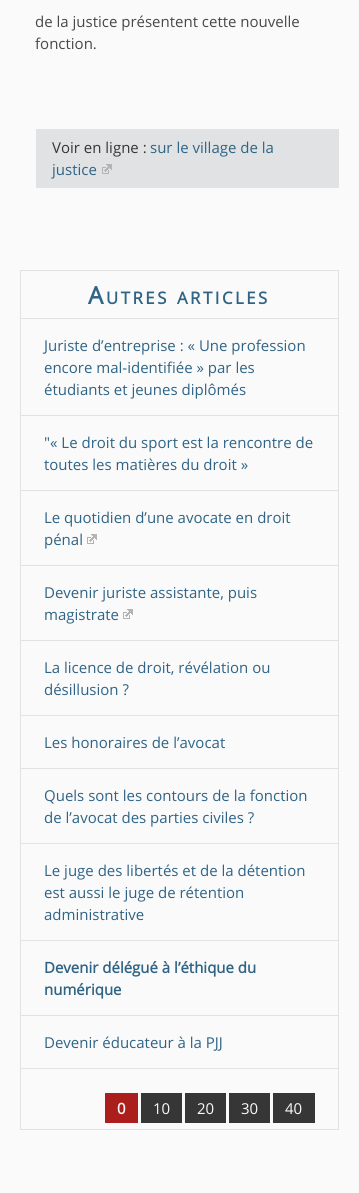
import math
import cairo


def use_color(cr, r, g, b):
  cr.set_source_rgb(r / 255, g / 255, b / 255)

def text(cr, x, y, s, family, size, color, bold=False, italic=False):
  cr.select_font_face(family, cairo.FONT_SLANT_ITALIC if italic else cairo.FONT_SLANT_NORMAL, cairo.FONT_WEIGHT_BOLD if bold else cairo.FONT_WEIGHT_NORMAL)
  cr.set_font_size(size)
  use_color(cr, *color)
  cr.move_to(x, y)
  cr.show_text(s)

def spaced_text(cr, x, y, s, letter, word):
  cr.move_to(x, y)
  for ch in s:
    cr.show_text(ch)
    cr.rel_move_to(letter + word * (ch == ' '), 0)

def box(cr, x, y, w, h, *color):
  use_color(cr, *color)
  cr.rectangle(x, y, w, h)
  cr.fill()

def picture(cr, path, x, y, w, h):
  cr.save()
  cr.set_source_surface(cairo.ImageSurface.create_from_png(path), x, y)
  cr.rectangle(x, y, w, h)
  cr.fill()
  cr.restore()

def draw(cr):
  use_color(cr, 250, 250, 250)
  cr.paint()
  box(cr, 36, 129, 303, 59, 224, 226, 228)
  picture(cr, "img_01.png", 102, 164, 10, 10)
  cr.rectangle(20.5, 270.5, 318, 859)
  cr.set_line_width(1)
  cr.stroke()
  box(cr, 21, 318, 317, 1, 224, 226, 228)
  box(cr, 21, 415, 317, 1, 224, 226, 228)
  box(cr, 21, 490, 317, 1, 224, 226, 228)
  box(cr, 21, 565, 317, 1, 224, 226, 228)
  picture(cr, "img_02.png", 87, 534, 10, 10)
  box(cr, 21, 640, 317, 1, 224, 226, 228)
  picture(cr, "img_02.png", 123, 609, 10, 10)
  box(cr, 21, 715, 317, 1, 224, 226, 228)
  box(cr, 21, 768, 317, 1, 224, 226, 228)
  box(cr, 21, 843, 317, 1, 224, 226, 228)
  box(cr, 21, 940, 317, 1, 224, 226, 228)
  box(cr, 21, 1015, 317, 1, 224, 226, 228)
  box(cr, 21, 1068, 317, 1, 224, 226, 228)
  box(cr, 105, 1093, 33, 30, 172, 30, 28)
  box(cr, 141, 1093, 41, 30, 54, 54, 54)
  box(cr, 185, 1093, 41, 30, 54, 54, 54)
  box(cr, 229, 1093, 41, 30, 54, 54, 54)
  box(cr, 273, 1093, 42, 30, 54, 54, 54)
  text(cr, 35, 27, "de la justice présentent cette nouvelle", "Open Sans", 15, (72, 72, 72))
  text(cr, 35, 49, "fonction.", "Open Sans", 15, (72, 72, 72))
  text(cr, 52, 153, "Voir en ligne :", "Open Sans", 15, (54, 54, 54))
  text(cr, 150, 153, "sur le village de la", "Open Sans", 15, (47, 100, 134))
  text(cr, 52, 175, "justice", "Open Sans", 15, (47, 100, 134))
  cr.select_font_face("Open Sans", cairo.FONT_SLANT_NORMAL, cairo.FONT_WEIGHT_BOLD)
  cr.set_font_size(24)
  spaced_text(cr, 88, 304, "A", 2.5, 0)
  cr.set_font_size(16.75)
  spaced_text(cr, 106, 304, "UTRES", 2.5, 0)
  spaced_text(cr, 177, 304, "ARTICLES", 2.5, 0)
  text(cr, 44, 351, "Juriste d’entreprise : « Une profession", "Open Sans", 15, (47, 100, 134))
  text(cr, 44, 373, "encore mal-identifiée » par les", "Open Sans", 15, (47, 100, 134))
  text(cr, 44, 395, "étudiants et jeunes diplômés", "Open Sans", 15, (47, 100, 134))
  text(cr, 44, 448, "\"« Le droit du sport est la rencontre de", "Open Sans", 15, (47, 100, 134))
  text(cr, 44, 470, "toutes les matières du droit »", "Open Sans", 15, (47, 100, 134))
  text(cr, 44, 523, "Le quotidien d’une avocate en droit", "Open Sans", 15, (47, 100, 134))
  text(cr, 44, 545, "pénal", "Open Sans", 15, (47, 100, 134))
  text(cr, 44, 598, "Devenir juriste assistante, puis", "Open Sans", 15, (47, 100, 134))
  text(cr, 44, 620, "magistrate", "Open Sans", 15, (47, 100, 134))
  text(cr, 44, 673, "La licence de droit, révélation ou", "Open Sans", 15, (47, 100, 134))
  text(cr, 44, 695, "désillusion ?", "Open Sans", 15, (47, 100, 134))
  text(cr, 44, 748, "Les honoraires de l’avocat", "Open Sans", 15, (47, 100, 134))
  text(cr, 44, 801, "Quels sont les contours de la fonction", "Open Sans", 15, (47, 100, 134))
  text(cr, 44, 823, "de l’avocat des parties civiles ?", "Open Sans", 15, (47, 100, 134))
  text(cr, 44, 876, "Le juge des libertés et de la détention", "Open Sans", 15, (47, 100, 134))
  text(cr, 44, 898, "est aussi le juge de rétention", "Open Sans", 15, (47, 100, 134))
  text(cr, 44, 920, "administrative", "Open Sans", 15, (47, 100, 134))
  text(cr, 44, 973, "Devenir délégué à l’éthique du", "Open Sans", 15, (47, 100, 134), bold=True)
  text(cr, 44, 995, "numérique", "Open Sans", 15, (47, 100, 134), bold=True)
  text(cr, 44, 1048, "Devenir éducateur à la PJJ", "Open Sans", 15, (47, 100, 134))
  text(cr, 117, 1114, "0", "Open Sans", 15, (250, 250, 250), bold=True)
  text(cr, 153, 1114, "10", "Open Sans", 15, (250, 250, 250))
  text(cr, 197, 1114, "20", "Open Sans", 15, (250, 250, 250))
  text(cr, 241, 1114, "30", "Open Sans", 15, (250, 250, 250))
  text(cr, 285, 1114, "40", "Open Sans", 15, (250, 250, 250))


surface = cairo.ImageSurface(cairo.FORMAT_RGB24, 359, 1193)
cr = cairo.Context(surface)
options = cairo.FontOptions()
options.set_hint_metrics(cairo.HINT_METRICS_OFF)
options.set_hint_style(cairo.HINT_STYLE_NONE)
cr.set_font_options(options)
cr.set_miter_limit(4)
draw(cr)
surface.write_to_png("out.png")
